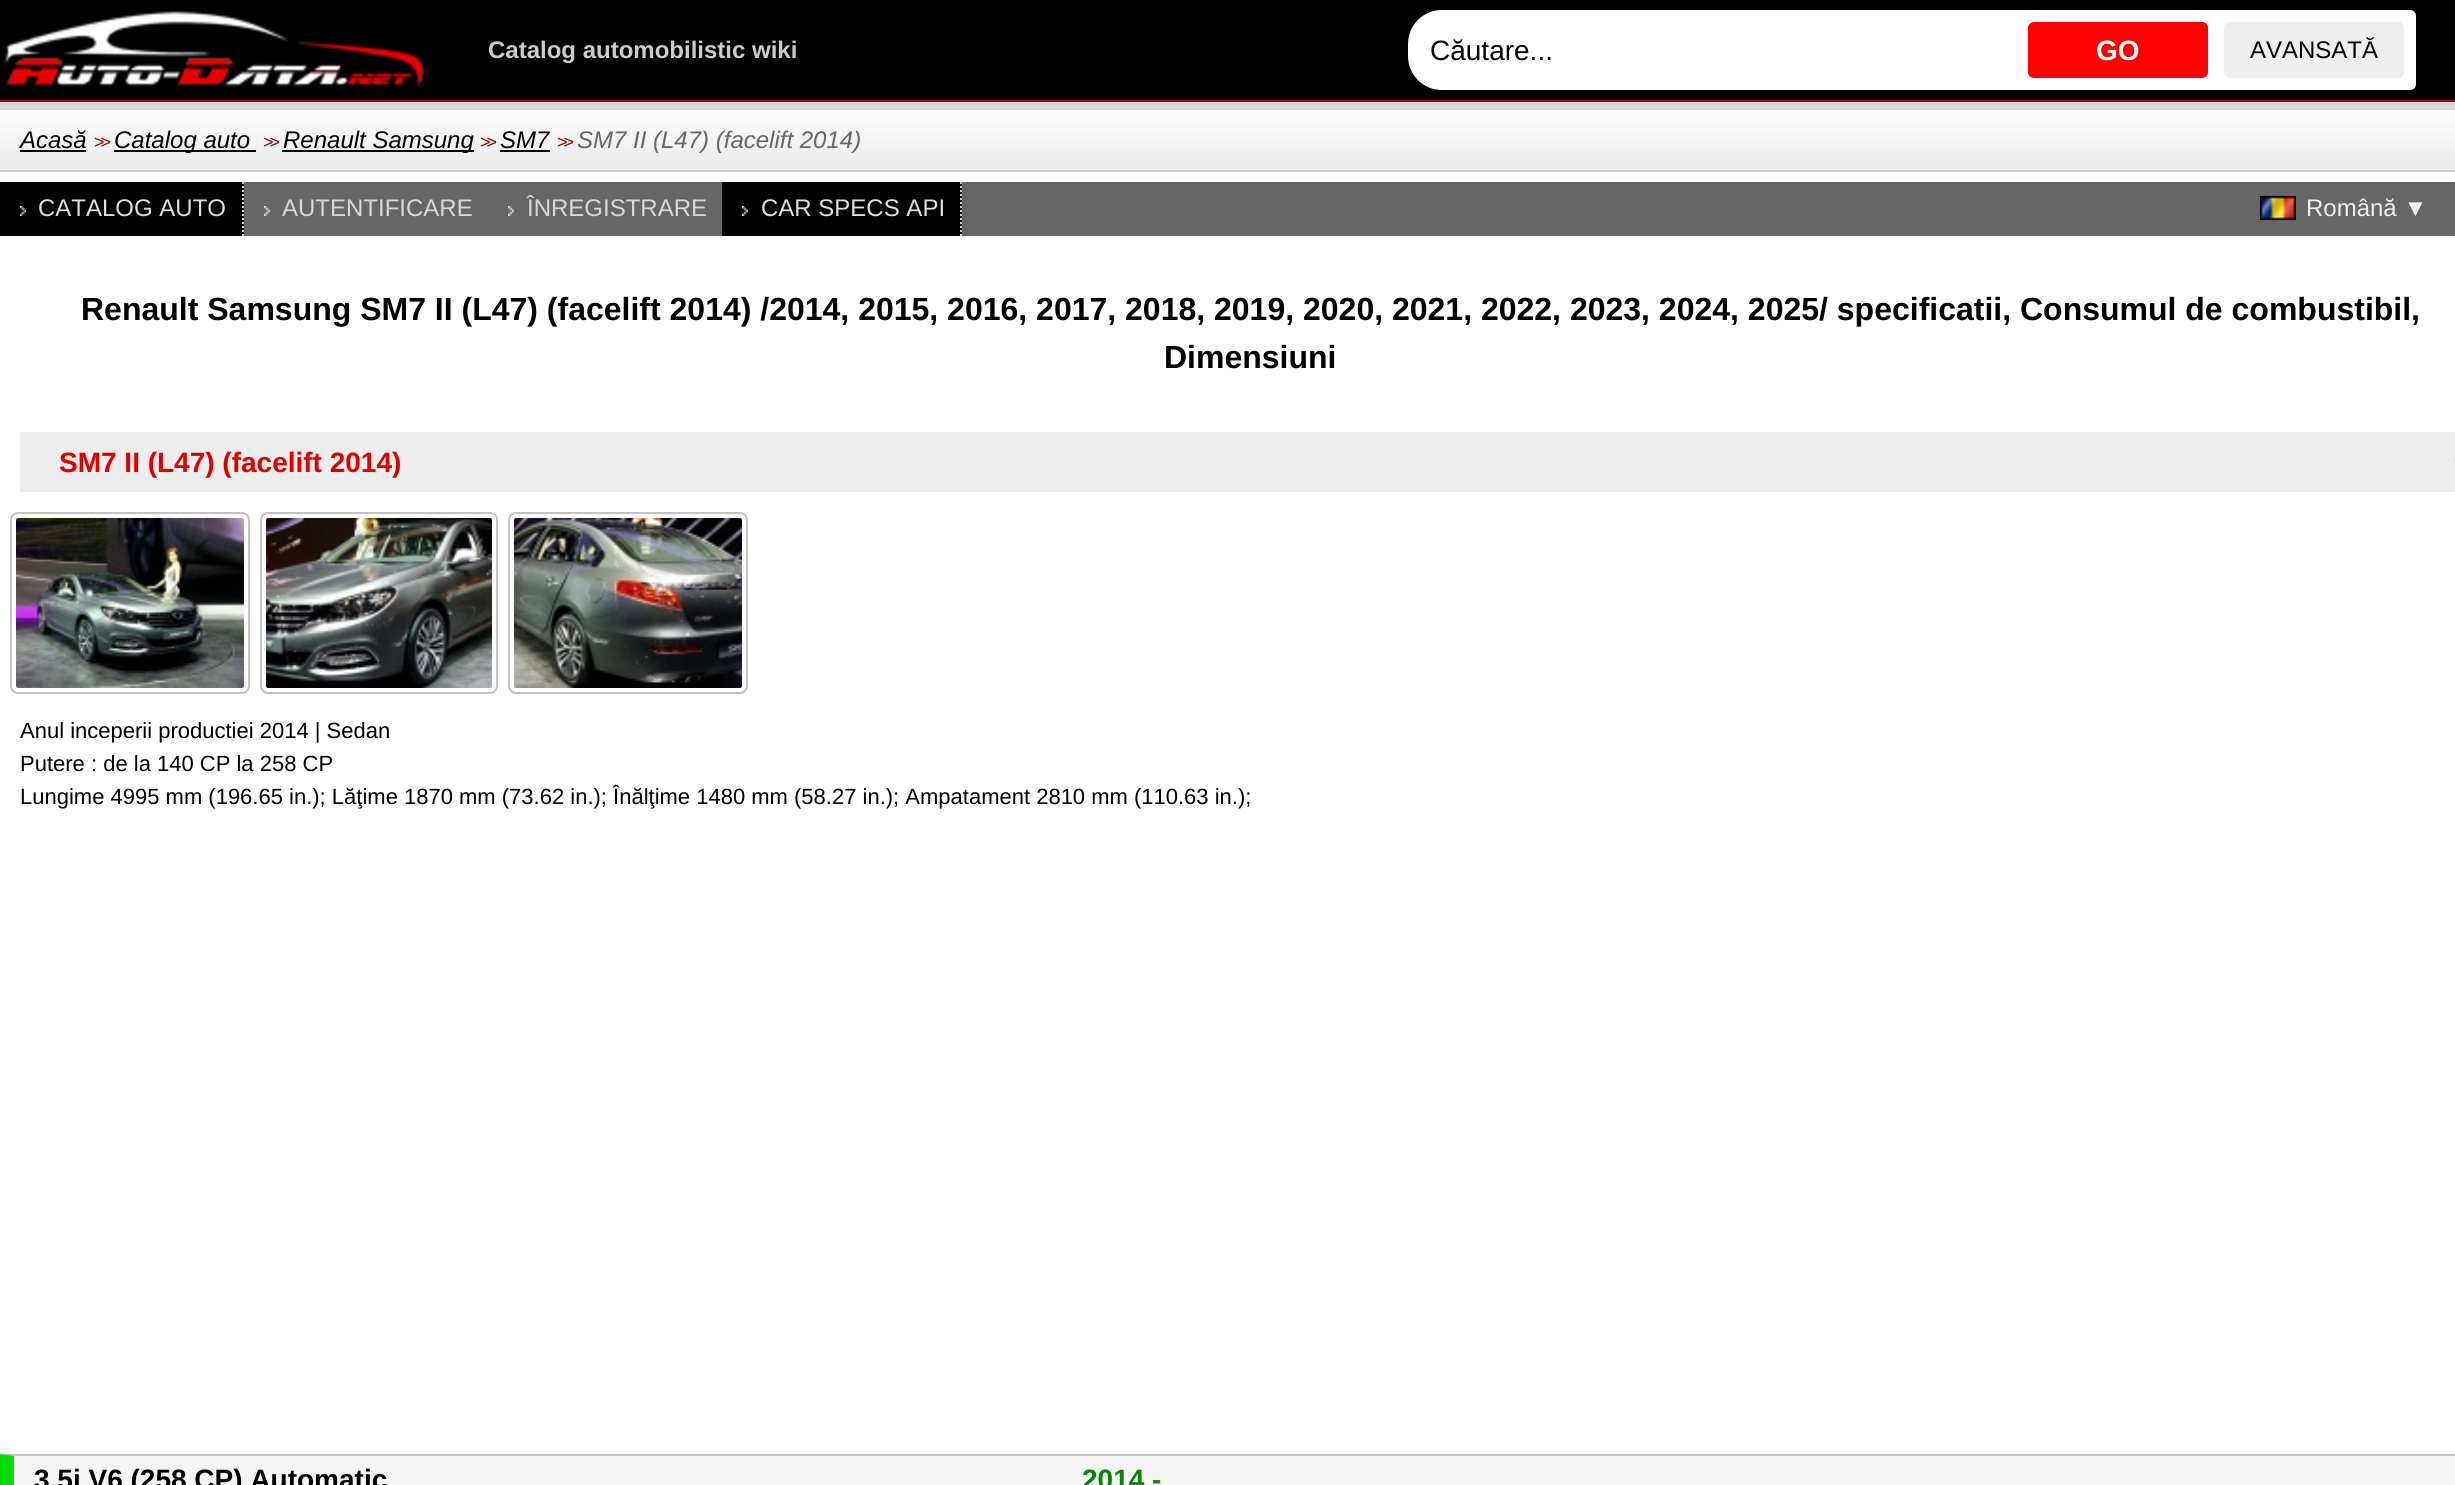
import math
import cairo


def use_color(cr, r, g, b):
  cr.set_source_rgb(r / 255, g / 255, b / 255)

def text(cr, x, y, s, family, size, color, bold=False, italic=False):
  cr.select_font_face(family, cairo.FONT_SLANT_ITALIC if italic else cairo.FONT_SLANT_NORMAL, cairo.FONT_WEIGHT_BOLD if bold else cairo.FONT_WEIGHT_NORMAL)
  cr.set_font_size(size)
  use_color(cr, *color)
  cr.move_to(x, y)
  cr.show_text(s)

def spaced_text(cr, x, y, s, letter, word):
  cr.move_to(x, y)
  for ch in s:
    cr.show_text(ch)
    cr.rel_move_to(letter + word * (ch == ' '), 0)

def box(cr, x, y, w, h, *color):
  use_color(cr, *color)
  cr.rectangle(x, y, w, h)
  cr.fill()

def round_rect(cr, x, y, w, h, r):
  cr.new_sub_path()
  for i, (u, v) in enumerate([(x + w - r, y + h - r), (x + r, y + h - r), (x + r, y + r), (x + w - r, y + r)]):
    cr.arc(u, v, r, i * math.pi / 2, (i + 1) * math.pi / 2)
  cr.close_path()

def picture(cr, path, x, y, w, h):
  cr.save()
  cr.set_source_surface(cairo.ImageSurface.create_from_png(path), x, y)
  cr.rectangle(x, y, w, h)
  cr.fill()
  cr.restore()

def draw(cr):
  use_color(cr, 219, 216, 216)
  cr.paint()
  box(cr, 0, 0, 2455, 100, 0, 0, 0)
  box(cr, 0, 100, 2455, 2, 181, 0, 0)
  picture(cr, "img_01.png", 3, 11, 422, 77)
  use_color(cr, 255, 255, 255)
  cr.new_path()
  cr.move_to(1442, 10)
  cr.line_to(2410, 10)
  cr.curve_to(2413.5, 10, 2416, 12.5, 2416, 16)
  cr.line_to(2416, 84)
  cr.curve_to(2416, 87.5, 2413.5, 90, 2410, 90)
  cr.line_to(1442, 90)
  cr.curve_to(1423, 90, 1408, 75, 1408, 56)
  cr.line_to(1408, 44)
  cr.curve_to(1408, 25, 1423, 10, 1442, 10)
  cr.close_path()
  cr.fill()
  use_color(cr, 255, 0, 0)
  round_rect(cr, 2028, 22, 180, 56, 6)
  cr.fill()
  use_color(cr, 238, 238, 238)
  round_rect(cr, 2224, 22, 180, 56, 6)
  cr.fill()
  box(cr, 0, 172, 2455, 1282, 255, 255, 255)
  picture(cr, "img_02.png", 0, 110, 2455, 60)
  box(cr, 0, 170, 2455, 2, 204, 204, 204)
  box(cr, 20, 150, 66, 2, 0, 0, 0)
  box(cr, 114, 150, 142, 2, 0, 0, 0)
  box(cr, 282, 150, 192, 2, 0, 0, 0)
  box(cr, 500, 150, 50, 2, 0, 0, 0)
  box(cr, 244, 182, 2211, 54, 102, 102, 102)
  box(cr, 0, 182, 244, 54, 0, 0, 0)
  picture(cr, "img_03.png", 20, 206, 6, 10)
  cr.new_path()
  cr.move_to(243, 182)
  cr.line_to(243, 236)
  use_color(cr, 204, 204, 204)
  cr.set_dash([2, 2])
  cr.stroke()
  picture(cr, "img_04.png", 264, 206, 6, 10)
  picture(cr, "img_04.png", 508, 206, 6, 10)
  box(cr, 722, 182, 240, 54, 0, 0, 0)
  picture(cr, "img_03.png", 742, 206, 6, 10)
  cr.new_path()
  cr.move_to(961, 182)
  cr.line_to(961, 236)
  use_color(cr, 204, 204, 204)
  cr.stroke()
  picture(cr, "img_05.png", 2260, 196, 36, 24)
  box(cr, 20, 432, 2435, 60, 238, 238, 238)
  cr.new_path()
  cr.move_to(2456, 458)
  cr.line_to(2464, 466)
  cr.line_to(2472, 458)
  use_color(cr, 225, 0, 0)
  cr.set_line_width(4)
  cr.set_dash([])
  cr.stroke()
  round_rect(cr, 11, 513, 238, 180, 7)
  use_color(cr, 195, 195, 195)
  cr.set_line_width(2)
  cr.stroke()
  picture(cr, "img_06.png", 16, 518, 228, 170)
  round_rect(cr, 261, 513, 236, 180, 7)
  cr.stroke()
  picture(cr, "img_07.png", 266, 518, 226, 170)
  round_rect(cr, 509, 513, 238, 180, 7)
  cr.stroke()
  picture(cr, "img_08.png", 514, 518, 228, 170)
  box(cr, 0, 1454, 2455, 31, 245, 245, 245)
  use_color(cr, 195, 195, 195)
  cr.new_path()
  cr.move_to(0, 1454)
  cr.line_to(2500, 1454)
  cr.line_to(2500, 1456)
  cr.line_to(14, 1456)
  cr.close_path()
  cr.fill()
  use_color(cr, 0, 221, 0)
  cr.new_path()
  cr.move_to(0, 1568)
  cr.line_to(0, 1454)
  cr.line_to(14, 1456)
  cr.line_to(14, 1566)
  cr.close_path()
  cr.fill()
  text(cr, 488, 58, "Catalog automobilistic wiki", "Liberation Sans", 24, (204, 204, 204), bold=True)
  text(cr, 1430, 60, "Căutare...", "Liberation Sans", 28, (0, 0, 0))
  text(cr, 2096, 60, "GO", "Liberation Sans", 28, (255, 255, 255), bold=True)
  text(cr, 2250, 58, "AVANSATĂ", "Liberation Sans", 24, (0, 0, 0))
  text(cr, 20, 148, "Acasă", "Liberation Sans", 24, (0, 0, 0), italic=True)
  cr.select_font_face("Liberation Sans")
  cr.set_font_size(18)
  use_color(cr, 153, 0, 0)
  spaced_text(cr, 94, 148, ">>", -4, 0)
  text(cr, 114, 148, "Catalog auto", "Liberation Sans", 24, (0, 0, 0), italic=True)
  cr.select_font_face("Liberation Sans")
  cr.set_font_size(18)
  use_color(cr, 153, 0, 0)
  spaced_text(cr, 263, 148, ">>", -4, 0)
  text(cr, 283, 148, "Renault Samsung", "Liberation Sans", 24, (0, 0, 0), italic=True)
  cr.select_font_face("Liberation Sans")
  cr.set_font_size(18)
  use_color(cr, 153, 0, 0)
  spaced_text(cr, 480, 148, ">>", -4, 0)
  text(cr, 500, 148, "SM7", "Liberation Sans", 24, (0, 0, 0), italic=True)
  cr.select_font_face("Liberation Sans")
  cr.set_font_size(18)
  use_color(cr, 153, 0, 0)
  spaced_text(cr, 557, 148, ">>", -4, 0)
  text(cr, 577, 148, "SM7 II (L47) (facelift 2014)", "Liberation Sans", 24, (102, 102, 102), italic=True)
  text(cr, 38, 216, "CATALOG AUTO", "Liberation Sans", 24, (224, 224, 224))
  text(cr, 282, 216, "AUTENTIFICARE", "Liberation Sans", 24, (216, 216, 216))
  text(cr, 527, 216, "ÎNREGISTRARE", "Liberation Sans", 24, (216, 216, 216))
  text(cr, 761, 216, "CAR SPECS API", "Liberation Sans", 24, (224, 224, 224))
  text(cr, 2306, 216, "Română ▼", "Liberation Sans", 24, (238, 238, 238))
  text(cr, 81, 320, "Renault Samsung SM7 II (L47) (facelift 2014) /2014, 2015, 2016, 2017, 2018, 2019, 2020, 2021, 2022, 2023, 2024, 2025/ specificatii, Consumul de combustibil,", "Liberation Sans", 32, (0, 0, 0), bold=True)
  text(cr, 1164, 368, "Dimensiuni", "Liberation Sans", 32, (0, 0, 0), bold=True)
  text(cr, 59, 472, "SM7 II (L47) (facelift 2014)", "Liberation Sans", 28, (225, 0, 0), bold=True)
  text(cr, 20, 738, "Anul inceperii productiei 2014 | Sedan", "Liberation Sans", 22, (0, 0, 0))
  text(cr, 20, 771, "Putere : de la 140 CP la 258 CP", "Liberation Sans", 22, (0, 0, 0))
  text(cr, 20, 804, "Lungime 4995 mm (196.65 in.); Lăţime 1870 mm (73.62 in.); Înălţime 1480 mm (58.27 in.); Ampatament 2810 mm (110.63 in.);", "Liberation Sans", 22, (0, 0, 0))
  text(cr, 34, 1489, "3.5i V6 (258 CP) Automatic", "Liberation Sans", 28, (0, 0, 0), bold=True)
  text(cr, 1082, 1489, "2014 -", "Liberation Sans", 28, (0, 136, 0), bold=True)


surface = cairo.ImageSurface(cairo.FORMAT_RGB24, 2455, 1485)
cr = cairo.Context(surface)
options = cairo.FontOptions()
options.set_hint_metrics(cairo.HINT_METRICS_OFF)
options.set_hint_style(cairo.HINT_STYLE_NONE)
cr.set_font_options(options)
cr.set_miter_limit(4)
draw(cr)
surface.write_to_png("out.png")
